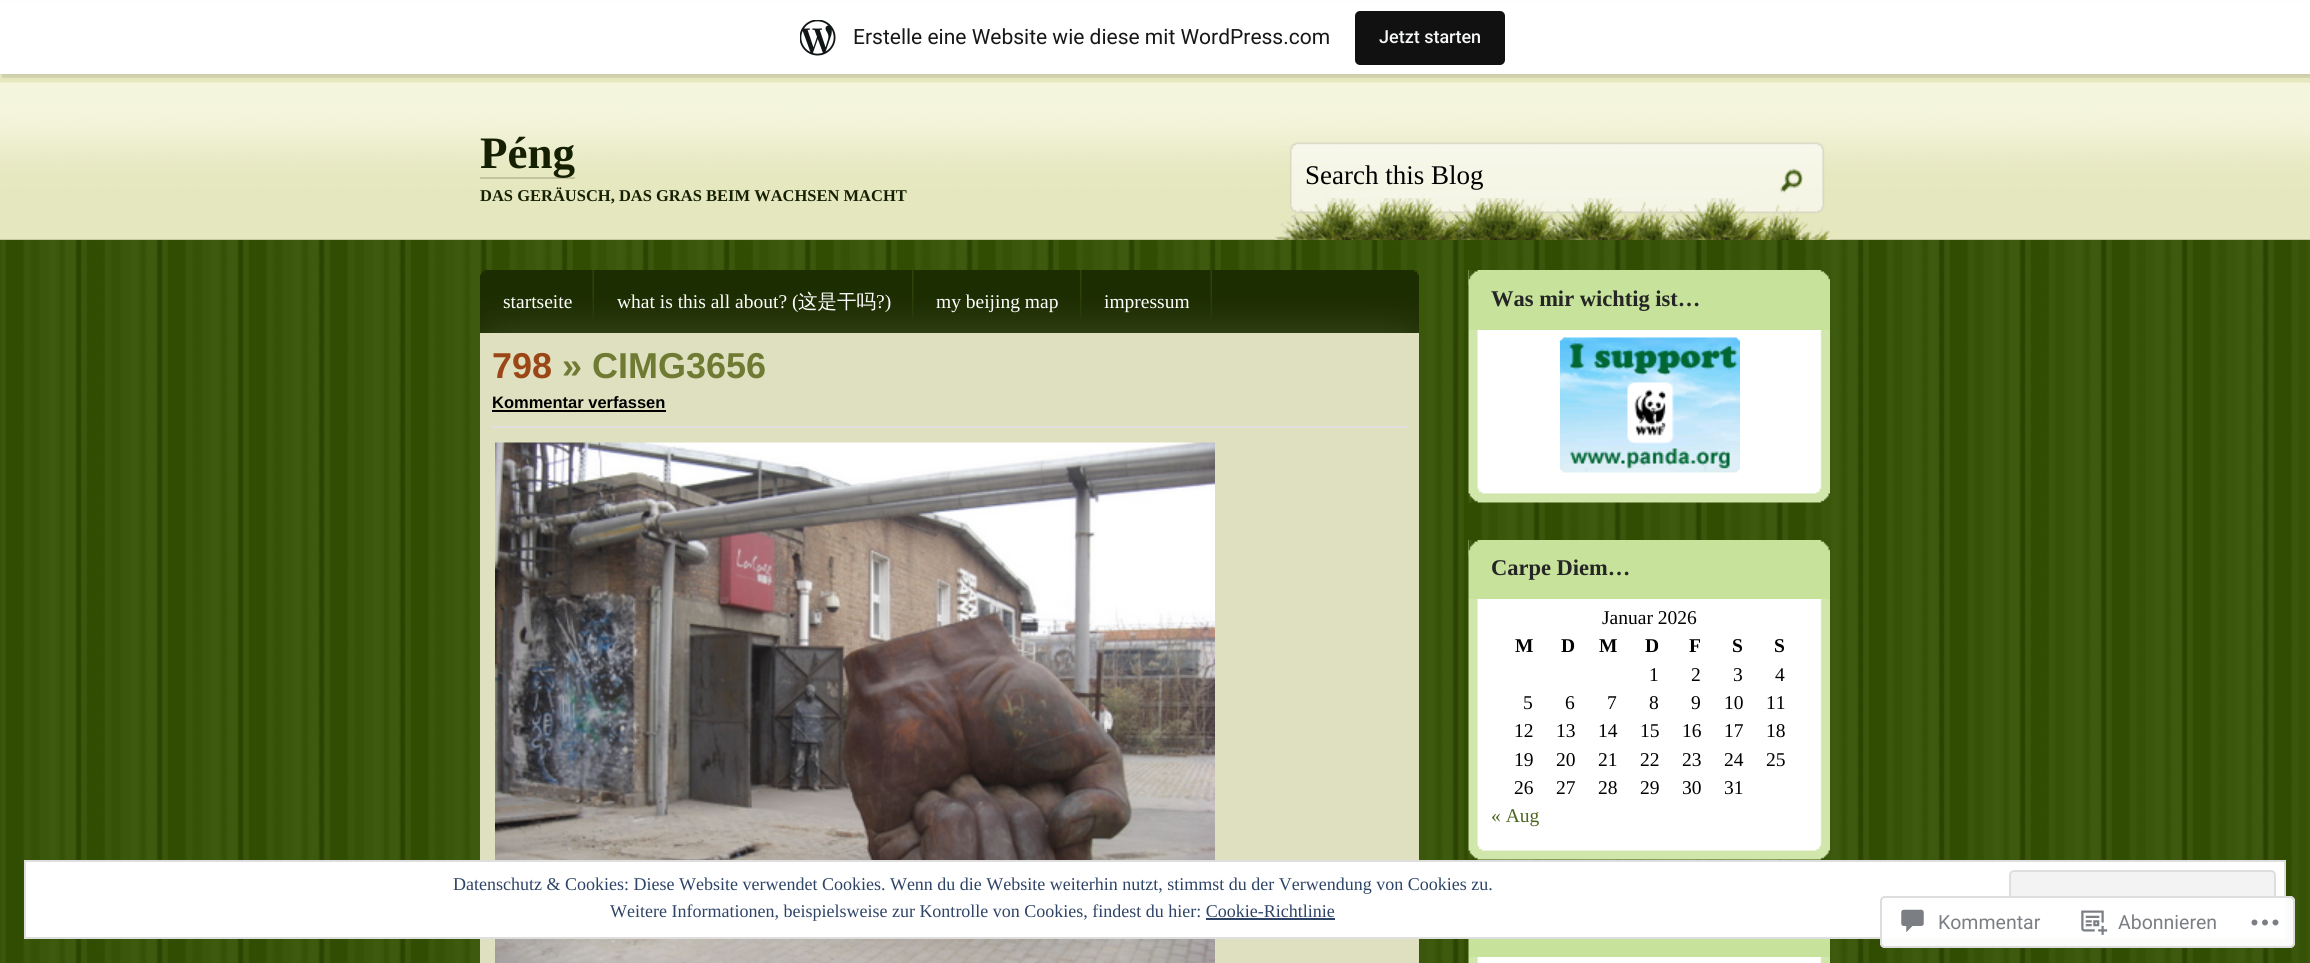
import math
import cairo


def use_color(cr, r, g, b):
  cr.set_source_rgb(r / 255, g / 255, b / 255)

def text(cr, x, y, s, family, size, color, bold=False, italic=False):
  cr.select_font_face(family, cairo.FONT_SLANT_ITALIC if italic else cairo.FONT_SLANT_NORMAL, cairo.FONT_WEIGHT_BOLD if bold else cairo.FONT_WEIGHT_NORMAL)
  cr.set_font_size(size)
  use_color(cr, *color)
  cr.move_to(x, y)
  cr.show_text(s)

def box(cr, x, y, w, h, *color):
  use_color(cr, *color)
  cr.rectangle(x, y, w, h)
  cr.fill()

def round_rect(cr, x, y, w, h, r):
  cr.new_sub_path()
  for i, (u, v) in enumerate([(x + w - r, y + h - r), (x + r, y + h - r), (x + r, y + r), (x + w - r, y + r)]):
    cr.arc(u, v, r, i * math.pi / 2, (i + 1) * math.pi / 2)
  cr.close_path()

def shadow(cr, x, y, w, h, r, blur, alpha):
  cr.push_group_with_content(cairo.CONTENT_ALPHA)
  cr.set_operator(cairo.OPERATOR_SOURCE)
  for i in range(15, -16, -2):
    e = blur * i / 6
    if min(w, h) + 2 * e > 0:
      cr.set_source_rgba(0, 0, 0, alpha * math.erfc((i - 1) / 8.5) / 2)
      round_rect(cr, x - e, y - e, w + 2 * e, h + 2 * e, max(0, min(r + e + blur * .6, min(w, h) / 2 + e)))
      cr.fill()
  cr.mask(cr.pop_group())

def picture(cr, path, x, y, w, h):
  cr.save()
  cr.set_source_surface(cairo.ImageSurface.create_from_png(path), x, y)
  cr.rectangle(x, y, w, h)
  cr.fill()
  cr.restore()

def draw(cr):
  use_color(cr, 255, 255, 255)
  cr.paint()
  picture(cr, "img_01.png", 0, 240, 2310, 723)
  picture(cr, "img_03.png", 0, 74, 2310, 166)
  use_color(cr, 0, 0, 0)
  shadow(cr, 0, 2, 2310, 73, 0, 1.5, 0.05)
  cr.set_source_rgba(0, 0, 0, 0.08)
  cr.new_path()
  cr.move_to(2, 74)
  cr.line_to(2, 78)
  cr.line_to(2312, 78)
  cr.line_to(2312, 5)
  cr.line_to(2310, 5)
  cr.line_to(2310, 74)
  cr.close_path()
  cr.fill()
  box(cr, 0, 1, 2310, 73, 255, 255, 255)
  picture(cr, "img_02.png", 800, 20, 36, 36)
  use_color(cr, 17, 17, 17)
  round_rect(cr, 1355, 11, 150, 54, 5)
  cr.fill()
  box(cr, 480, 177, 95, 2, 194, 196, 158)
  picture(cr, "img_04.png", 1275, 142, 555, 98)
  box(cr, 1331, 190, 414, 8, 245, 246, 231)
  picture(cr, "img_05.png", 1780, 168, 23, 26)
  picture(cr, "img_06.png", 480, 270, 939, 63)
  picture(cr, "img_07.png", 592, 270, 2, 49)
  picture(cr, "img_08.png", 912, 270, 2, 49)
  picture(cr, "img_08.png", 1080, 270, 2, 49)
  picture(cr, "img_07.png", 1210, 270, 2, 49)
  box(cr, 480, 333, 939, 630, 222, 224, 191)
  box(cr, 492, 426, 915, 2, 223, 223, 223)
  box(cr, 492, 410, 174, 2, 0, 0, 0)
  picture(cr, "img_09.png", 495, 442, 720, 521)
  picture(cr, "img_10.png", 1468, 270, 362, 233)
  picture(cr, "img_11.png", 1468, 270, 362, 15)
  box(cr, 1469, 285, 361, 45, 198, 226, 155)
  picture(cr, "img_12.png", 1560, 337, 180, 136)
  picture(cr, "img_13.png", 1468, 540, 362, 320)
  picture(cr, "img_14.png", 1468, 540, 362, 17)
  box(cr, 1469, 556, 361, 43, 198, 226, 155)
  picture(cr, "img_15.png", 1468, 939, 362, 24)
  box(cr, 1469, 939, 361, 18, 198, 226, 155)
  use_color(cr, 255, 255, 255)
  cr.rectangle(25, 861, 2260, 77)
  cr.fill_preserve()
  use_color(cr, 222, 222, 222)
  cr.stroke()
  use_color(cr, 243, 243, 243)
  round_rect(cr, 2010, 871, 265, 57, 4)
  cr.fill_preserve()
  use_color(cr, 222, 222, 222)
  cr.stroke()
  box(cr, 1206, 918, 129, 2, 46, 68, 103)
  cr.set_source_rgba(1, 1, 1, 0.98)
  round_rect(cr, 1880, 896, 415, 52, 5)
  cr.fill()
  round_rect(cr, 1881, 897, 413, 50, 4)
  cr.set_source_rgba(0.863, 0.863, 0.871, 0.98)
  cr.stroke()
  picture(cr, "img_16.png", 1901, 909, 23, 24)
  picture(cr, "img_17.png", 2081, 910, 27, 25)
  picture(cr, "img_18.png", 2251, 919, 28, 7)
  text(cr, 853, 44, "Erstelle eine Website wie diese mit WordPress.com", "Roboto", 21, (23, 23, 23))
  text(cr, 1379, 43, "Jetzt starten", "Roboto Medium", 18, (246, 247, 247))
  text(cr, 480, 168, "Péng", "Liberation Serif", 45, (21, 32, 2), bold=True)
  text(cr, 480, 201, "DAS GERÄUSCH, DAS GRAS BEIM WACHSEN MACHT", "Liberation Serif", 16.5, (21, 32, 2), bold=True)
  text(cr, 1305, 184, "Search this Blog", "Liberation Serif", 27, (0, 0, 0))
  text(cr, 503, 308, "startseite", "Liberation Serif", 19.5, (255, 255, 255))
  text(cr, 617, 308, "what is this all about? (", "Liberation Serif", 19.5, (255, 255, 255))
  text(cr, 798, 308, "这是干吗", "WenQuanYi Zen Hei Medium", 19.5, (255, 255, 255))
  text(cr, 876, 308, "?)", "Liberation Serif", 19.5, (255, 255, 255))
  text(cr, 936, 308, "my beijing map", "Liberation Serif", 19.5, (255, 255, 255))
  text(cr, 1104, 308, "impressum", "Liberation Serif", 19.5, (255, 255, 255))
  text(cr, 492, 378, "798", "Liberation Sans", 36, (156, 70, 23), bold=True)
  text(cr, 562, 378, "» CIMG3656", "Liberation Sans", 36, (111, 122, 51), bold=True)
  text(cr, 492, 408, "Kommentar verfassen", "Liberation Sans", 16.5, (0, 0, 0), bold=True)
  text(cr, 1491, 306, "Was mir wichtig ist…", "Liberation Serif", 22.5, (37, 37, 37), bold=True)
  text(cr, 1491, 575, "Carpe Diem…", "Liberation Serif", 22.5, (37, 37, 37), bold=True)
  text(cr, 1602, 624, "Januar 2026", "Liberation Serif", 19.5, (0, 0, 0))
  text(cr, 1515, 652, "M", "Liberation Serif", 19.5, (0, 0, 0), bold=True)
  text(cr, 1561, 652, "D", "Liberation Serif", 19.5, (0, 0, 0), bold=True)
  text(cr, 1599, 652, "M", "Liberation Serif", 19.5, (0, 0, 0), bold=True)
  text(cr, 1645, 652, "D", "Liberation Serif", 19.5, (0, 0, 0), bold=True)
  text(cr, 1689, 652, "F", "Liberation Serif", 19.5, (0, 0, 0), bold=True)
  text(cr, 1732, 652, "S", "Liberation Serif", 19.5, (0, 0, 0), bold=True)
  text(cr, 1774, 652, "S", "Liberation Serif", 19.5, (0, 0, 0), bold=True)
  text(cr, 1649, 681, "1", "Liberation Serif", 19.5, (0, 0, 0))
  text(cr, 1691, 681, "2", "Liberation Serif", 19.5, (0, 0, 0))
  text(cr, 1733, 681, "3", "Liberation Serif", 19.5, (0, 0, 0))
  text(cr, 1775, 681, "4", "Liberation Serif", 19.5, (0, 0, 0))
  text(cr, 1523, 709, "5", "Liberation Serif", 19.5, (0, 0, 0))
  text(cr, 1565, 709, "6", "Liberation Serif", 19.5, (0, 0, 0))
  text(cr, 1607, 709, "7", "Liberation Serif", 19.5, (0, 0, 0))
  text(cr, 1649, 709, "8", "Liberation Serif", 19.5, (0, 0, 0))
  text(cr, 1691, 709, "9", "Liberation Serif", 19.5, (0, 0, 0))
  text(cr, 1724, 709, "10", "Liberation Serif", 19.5, (0, 0, 0))
  text(cr, 1766, 709, "11", "Liberation Serif", 19.5, (0, 0, 0))
  text(cr, 1514, 737, "12", "Liberation Serif", 19.5, (0, 0, 0))
  text(cr, 1556, 737, "13", "Liberation Serif", 19.5, (0, 0, 0))
  text(cr, 1598, 737, "14", "Liberation Serif", 19.5, (0, 0, 0))
  text(cr, 1640, 737, "15", "Liberation Serif", 19.5, (0, 0, 0))
  text(cr, 1682, 737, "16", "Liberation Serif", 19.5, (0, 0, 0))
  text(cr, 1724, 737, "17", "Liberation Serif", 19.5, (0, 0, 0))
  text(cr, 1766, 737, "18", "Liberation Serif", 19.5, (0, 0, 0))
  text(cr, 1514, 766, "19", "Liberation Serif", 19.5, (0, 0, 0))
  text(cr, 1556, 766, "20", "Liberation Serif", 19.5, (0, 0, 0))
  text(cr, 1598, 766, "21", "Liberation Serif", 19.5, (0, 0, 0))
  text(cr, 1640, 766, "22", "Liberation Serif", 19.5, (0, 0, 0))
  text(cr, 1682, 766, "23", "Liberation Serif", 19.5, (0, 0, 0))
  text(cr, 1724, 766, "24", "Liberation Serif", 19.5, (0, 0, 0))
  text(cr, 1766, 766, "25", "Liberation Serif", 19.5, (0, 0, 0))
  text(cr, 1514, 794, "26", "Liberation Serif", 19.5, (0, 0, 0))
  text(cr, 1556, 794, "27", "Liberation Serif", 19.5, (0, 0, 0))
  text(cr, 1598, 794, "28", "Liberation Serif", 19.5, (0, 0, 0))
  text(cr, 1640, 794, "29", "Liberation Serif", 19.5, (0, 0, 0))
  text(cr, 1682, 794, "30", "Liberation Serif", 19.5, (0, 0, 0))
  text(cr, 1724, 794, "31", "Liberation Serif", 19.5, (0, 0, 0))
  text(cr, 1491, 822, "« Aug", "Liberation Serif", 19.5, (76, 101, 32))
  text(cr, 453, 890, "Datenschutz & Cookies: Diese Website verwendet Cookies. Wenn du die Website weiterhin nutzt, stimmst du der Verwendung von Cookies zu.", "Liberation Serif", 18, (46, 68, 103))
  text(cr, 610, 917, "Weitere Informationen, beispielsweise zur Kontrolle von Cookies, findest du hier: Cookie-Richtlinie", "Liberation Serif", 18, (46, 68, 103))
  text(cr, 1938, 929, "Kommentar", "Roboto", 19.5, (123, 127, 132))
  text(cr, 2118, 929, "Abonnieren", "Roboto", 19.5, (123, 127, 132))


surface = cairo.ImageSurface(cairo.FORMAT_RGB24, 2310, 963)
cr = cairo.Context(surface)
options = cairo.FontOptions()
options.set_hint_metrics(cairo.HINT_METRICS_OFF)
options.set_hint_style(cairo.HINT_STYLE_NONE)
cr.set_font_options(options)
cr.set_miter_limit(4)
draw(cr)
surface.write_to_png("out.png")
